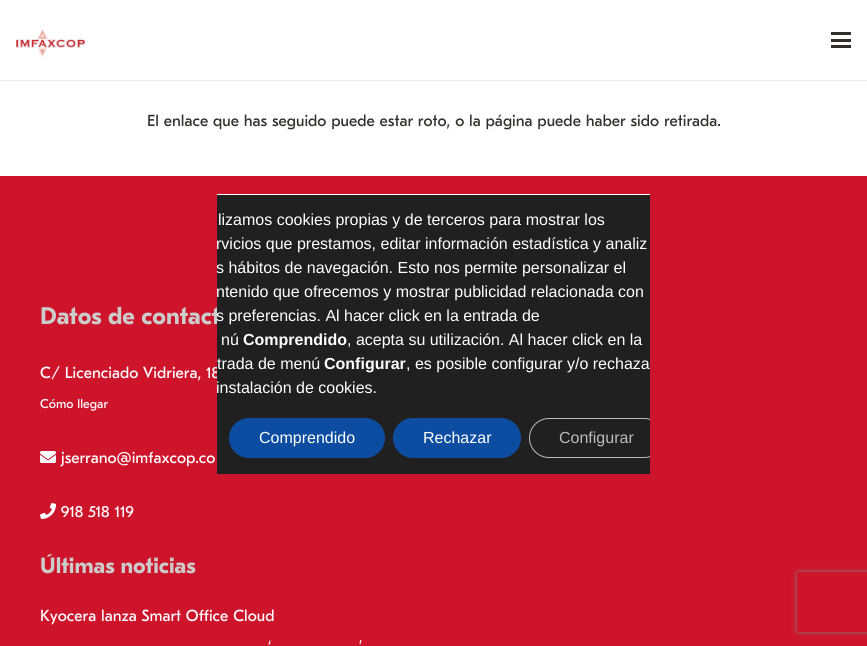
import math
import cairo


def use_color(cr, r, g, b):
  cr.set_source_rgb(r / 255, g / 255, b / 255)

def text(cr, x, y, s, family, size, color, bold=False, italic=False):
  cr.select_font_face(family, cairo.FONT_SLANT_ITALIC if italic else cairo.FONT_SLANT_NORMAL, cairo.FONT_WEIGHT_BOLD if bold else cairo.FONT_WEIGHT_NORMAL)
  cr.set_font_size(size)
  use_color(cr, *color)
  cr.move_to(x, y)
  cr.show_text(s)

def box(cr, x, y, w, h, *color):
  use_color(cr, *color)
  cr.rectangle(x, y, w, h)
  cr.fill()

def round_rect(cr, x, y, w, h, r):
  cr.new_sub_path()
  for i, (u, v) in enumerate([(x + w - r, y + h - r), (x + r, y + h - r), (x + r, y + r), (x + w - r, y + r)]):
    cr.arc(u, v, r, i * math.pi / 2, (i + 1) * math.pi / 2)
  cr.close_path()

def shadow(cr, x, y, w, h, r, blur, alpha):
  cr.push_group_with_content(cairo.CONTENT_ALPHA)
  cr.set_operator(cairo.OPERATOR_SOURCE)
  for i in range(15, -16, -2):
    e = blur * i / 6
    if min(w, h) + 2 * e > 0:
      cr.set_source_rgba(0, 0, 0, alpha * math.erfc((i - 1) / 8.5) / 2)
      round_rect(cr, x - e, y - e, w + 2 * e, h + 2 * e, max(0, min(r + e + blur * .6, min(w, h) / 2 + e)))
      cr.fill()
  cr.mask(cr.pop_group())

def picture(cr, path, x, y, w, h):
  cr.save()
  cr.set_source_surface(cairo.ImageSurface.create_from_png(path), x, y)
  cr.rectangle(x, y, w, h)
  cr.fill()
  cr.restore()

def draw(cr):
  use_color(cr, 255, 255, 255)
  cr.paint()
  box(cr, 0, 80, 867, 1, 235, 235, 235)
  picture(cr, "img_01.png", 16, 30, 69, 27)
  box(cr, 831, 39, 20, 3, 51, 47, 46)
  box(cr, 831, 32, 20, 3, 51, 47, 46)
  box(cr, 831, 45, 20, 3, 51, 47, 46)
  box(cr, 0, 176, 867, 470, 206, 20, 43)
  picture(cr, "img_02.png", 40, 451, 16, 12)
  picture(cr, "img_03.png", 40, 503, 16, 16)
  box(cr, 217, 194, 433, 1, 255, 255, 255)
  cr.save()
  cr.set_fill_rule(cairo.FILL_RULE_EVEN_ODD)
  cr.new_path()
  cr.move_to(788, 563)
  cr.line_to(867, 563)
  cr.line_to(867, 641)
  cr.line_to(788, 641)
  cr.close_path()
  cr.move_to(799, 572)
  cr.line_to(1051, 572)
  cr.curve_to(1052, 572, 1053, 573, 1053, 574)
  cr.line_to(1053, 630)
  cr.curve_to(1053, 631, 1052, 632, 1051, 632)
  cr.line_to(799, 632)
  cr.curve_to(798, 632, 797, 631, 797, 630)
  cr.line_to(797, 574)
  cr.curve_to(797, 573, 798, 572, 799, 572)
  cr.close_path()
  cr.clip()
  use_color(cr, 128, 128, 128)
  shadow(cr, 797, 572, 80, 60, 2, 2.5, 1)
  cr.restore()
  text(cr, 147, 126, "El enlace que has seguido puede estar roto, o la página puede haber sido retirada.", "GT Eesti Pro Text", 16, (51, 47, 46))
  text(cr, 40, 324, "Datos de contact", "GT Eesti Pro Text", 24, (204, 204, 204), bold=True)
  text(cr, 40, 378, "C/ Licenciado Vidriera, 18", "GT Eesti Pro Text", 16, (255, 255, 255))
  text(cr, 40, 408, "Cómo llegar", "GT Eesti Pro Text", 12.75, (255, 255, 255))
  text(cr, 61, 463, "jserrano@imfaxcop.co", "GT Eesti Pro Text", 16, (255, 255, 255))
  text(cr, 61, 517, "918 518 119", "GT Eesti Pro Text", 16, (255, 255, 255))
  text(cr, 40, 573, "Últimas noticias", "GT Eesti Pro Text", 22, (204, 204, 204), bold=True)
  text(cr, 40, 621, "Kyocera lanza Smart Office Cloud", "GT Eesti Pro Text", 16, (255, 255, 255))
  text(cr, 268, 652, "‘", "GT Eesti Pro Text", 16, (255, 255, 255))
  text(cr, 359, 652, "’", "GT Eesti Pro Text", 16, (255, 255, 255))
  box(cr, 217, 195, 433, 279, 32, 32, 32)
  text(cr, 218, 225, "lizamos cookies propias y de terceros para mostrar los", "Liberation Sans", 16, (255, 255, 255))
  cr.save()
  cr.rectangle(217, 195, 433, 279)
  cr.clip()
  text(cr, 216, 249, "rvicios que prestamos, editar información estadística y analiz", "Liberation Sans", 16, (255, 255, 255))
  text(cr, 216, 273, "s hábitos de navegación. Esto nos permite personalizar el", "Liberation Sans", 16, (255, 255, 255))
  text(cr, 216, 297, "ntenido que ofrecemos y mostrar publicidad relacionada con", "Liberation Sans", 16, (255, 255, 255))
  text(cr, 216, 321, "s preferencias. Al hacer click en la entrada de", "Liberation Sans", 16, (255, 255, 255))
  cr.restore()
  text(cr, 221, 345, "nú", "Liberation Sans", 16, (255, 255, 255))
  text(cr, 243, 345, "Comprendido", "Liberation Sans", 16, (255, 255, 255), bold=True)
  text(cr, 347, 345, ", acepta su utilización. Al hacer click en la", "Liberation Sans", 16, (255, 255, 255))
  text(cr, 217, 369, "trada de menú", "Liberation Sans", 16, (255, 255, 255))
  text(cr, 324, 369, "Configurar", "Liberation Sans", 16, (255, 255, 255), bold=True)
  text(cr, 406, 369, ", es posible configurar y/o rechaza", "Liberation Sans", 16, (255, 255, 255))
  cr.save()
  cr.rectangle(217, 195, 433, 279)
  cr.clip()
  text(cr, 216, 393, "instalación de cookies.", "Liberation Sans", 16, (255, 255, 255))
  cr.restore()
  use_color(cr, 12, 77, 162)
  round_rect(cr, 229, 418, 156, 40, 20)
  cr.fill()
  text(cr, 259, 443, "Comprendido", "Liberation Sans", 16, (255, 255, 255))
  use_color(cr, 12, 77, 162)
  round_rect(cr, 393, 418, 128, 40, 20)
  cr.fill()
  text(cr, 423, 443, "Rechazar", "Liberation Sans", 16, (255, 255, 255))
  cr.save()
  cr.rectangle(217, 195, 433, 279)
  cr.clip()
  round_rect(cr, 529.5, 418.5, 134, 39, 19.5)
  use_color(cr, 188, 188, 188)
  cr.set_line_width(1)
  cr.stroke()
  cr.restore()
  text(cr, 559, 443, "Configurar", "Liberation Sans", 16, (188, 188, 188))


surface = cairo.ImageSurface(cairo.FORMAT_RGB24, 867, 646)
cr = cairo.Context(surface)
options = cairo.FontOptions()
options.set_hint_metrics(cairo.HINT_METRICS_OFF)
options.set_hint_style(cairo.HINT_STYLE_NONE)
cr.set_font_options(options)
cr.set_miter_limit(4)
draw(cr)
surface.write_to_png("out.png")
